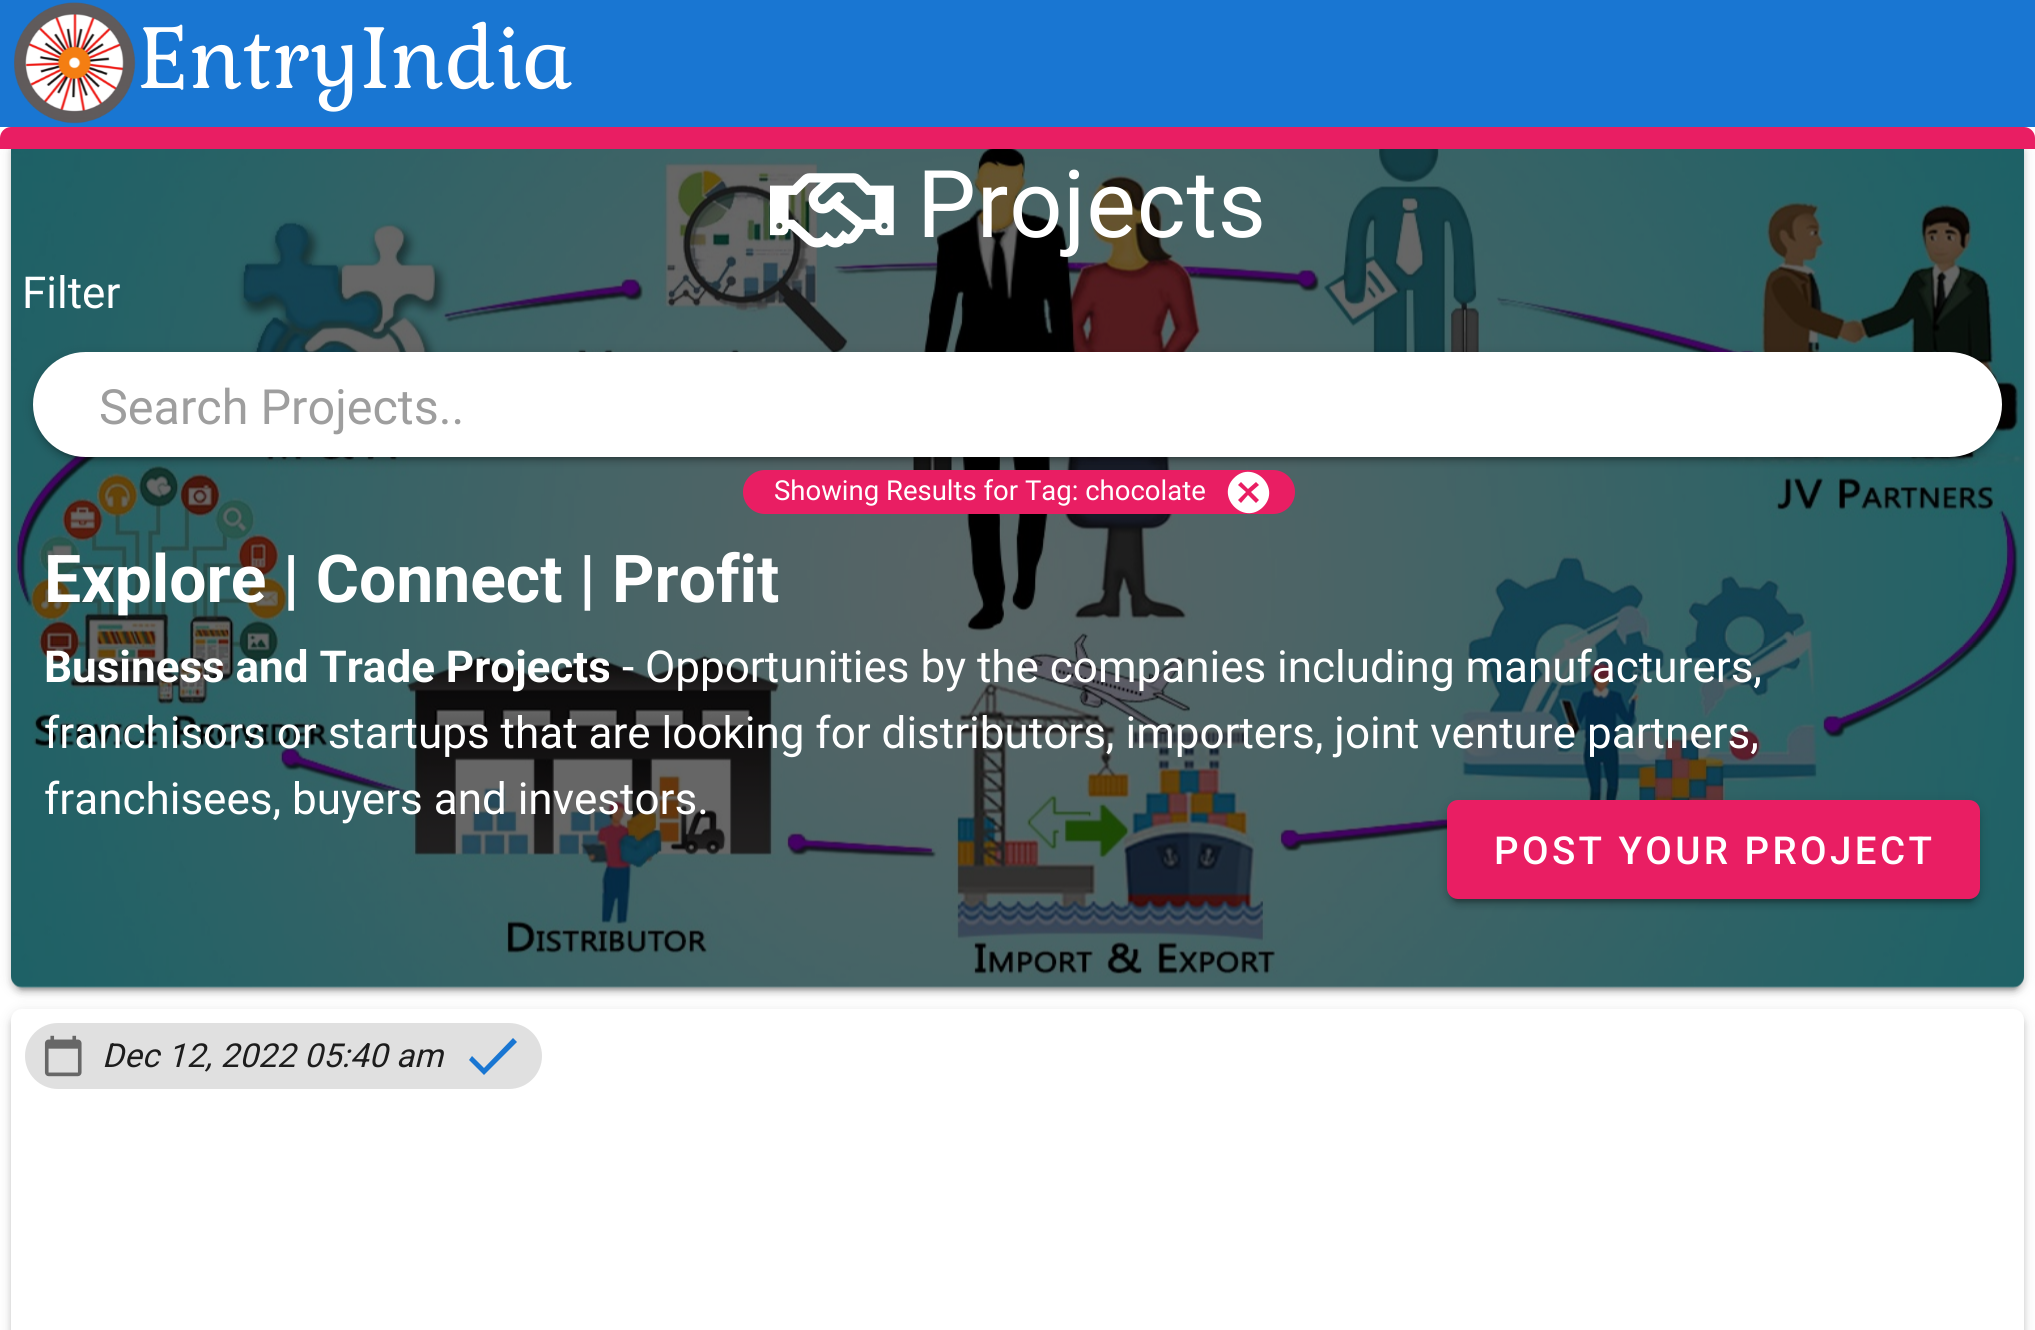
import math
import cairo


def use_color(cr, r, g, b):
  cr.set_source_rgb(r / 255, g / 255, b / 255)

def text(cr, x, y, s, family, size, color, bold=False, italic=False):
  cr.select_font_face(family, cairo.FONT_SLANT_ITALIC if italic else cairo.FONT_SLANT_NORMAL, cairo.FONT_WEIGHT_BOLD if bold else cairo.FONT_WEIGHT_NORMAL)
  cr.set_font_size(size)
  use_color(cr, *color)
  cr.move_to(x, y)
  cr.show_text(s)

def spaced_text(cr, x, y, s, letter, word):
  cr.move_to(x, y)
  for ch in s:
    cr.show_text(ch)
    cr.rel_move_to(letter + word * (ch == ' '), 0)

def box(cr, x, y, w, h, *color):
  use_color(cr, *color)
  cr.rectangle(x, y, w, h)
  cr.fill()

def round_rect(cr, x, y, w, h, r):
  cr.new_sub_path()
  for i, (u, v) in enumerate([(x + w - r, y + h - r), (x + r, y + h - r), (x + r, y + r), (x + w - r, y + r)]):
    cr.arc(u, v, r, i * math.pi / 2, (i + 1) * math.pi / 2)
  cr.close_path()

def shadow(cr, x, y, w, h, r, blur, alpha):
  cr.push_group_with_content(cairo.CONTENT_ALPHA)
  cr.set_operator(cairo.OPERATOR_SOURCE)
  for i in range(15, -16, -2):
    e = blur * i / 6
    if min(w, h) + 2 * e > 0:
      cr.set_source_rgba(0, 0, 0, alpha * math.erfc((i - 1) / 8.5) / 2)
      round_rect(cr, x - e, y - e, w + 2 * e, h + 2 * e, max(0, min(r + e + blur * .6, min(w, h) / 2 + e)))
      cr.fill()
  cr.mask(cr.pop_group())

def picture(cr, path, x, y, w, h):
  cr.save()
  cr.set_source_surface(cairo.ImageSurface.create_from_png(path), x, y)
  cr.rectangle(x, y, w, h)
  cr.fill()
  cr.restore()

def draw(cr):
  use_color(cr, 255, 255, 255)
  cr.paint()
  use_color(cr, 0, 0, 0)
  shadow(cr, 11, 140, 2013, 850, 11, 7, 0.12)
  box(cr, 0, 0, 2035, 127, 25, 118, 210)
  picture(cr, "img_01.png", 14, 2, 122, 122)
  use_color(cr, 0, 0, 0)
  shadow(cr, 11, 143, 2013, 850, 11, 3, 0.14)
  shadow(cr, 17, 151, 2002, 839, 6, 1.5, 0.2)
  picture(cr, "img_02.png", 11, 149, 2013, 839)
  use_color(cr, 233, 30, 99)
  cr.new_path()
  cr.move_to(11, 127)
  cr.line_to(2024, 127)
  cr.curve_to(2030, 127, 2035, 132, 2035, 138)
  cr.line_to(2035, 149)
  cr.line_to(0, 149)
  cr.line_to(0, 138)
  cr.curve_to(0, 132, 5, 127, 11, 127)
  cr.close_path()
  cr.fill()
  picture(cr, "img_03.png", 770, 173, 124, 75)
  use_color(cr, 0, 0, 0)
  shadow(cr, 33, 355, 1969, 104, 52, 7, 0.12)
  shadow(cr, 33, 358, 1969, 104, 52, 3, 0.14)
  shadow(cr, 39, 366, 1958, 93, 46.5, 1.5, 0.2)
  use_color(cr, 255, 255, 255)
  round_rect(cr, 33, 352, 1969, 105, 52.5)
  cr.fill()
  use_color(cr, 233, 30, 99)
  round_rect(cr, 743, 470, 552, 44, 22)
  cr.fill()
  use_color(cr, 255, 255, 255)
  cr.new_path()
  cr.move_to(1259, 500)
  cr.line_to(1251, 492)
  cr.line_to(1259, 485)
  cr.line_to(1256, 482)
  cr.line_to(1248, 489)
  cr.line_to(1241, 482)
  cr.line_to(1238, 485)
  cr.line_to(1246, 492)
  cr.line_to(1238, 500)
  cr.line_to(1241, 503)
  cr.line_to(1248, 495)
  cr.line_to(1256, 503)
  cr.close_path()
  cr.move_to(1234, 478)
  cr.curve_to(1253, 459, 1282, 488, 1263, 507)
  cr.curve_to(1244, 526, 1215, 497, 1234, 478)
  cr.close_path()
  cr.fill()
  use_color(cr, 0, 0, 0)
  shadow(cr, 1447, 803, 533, 99, 11, 7, 0.12)
  shadow(cr, 1447, 806, 533, 99, 11, 3, 0.14)
  shadow(cr, 1452, 814, 523, 88, 6, 1.5, 0.2)
  use_color(cr, 233, 30, 99)
  round_rect(cr, 1447, 800, 533, 99, 11)
  cr.fill()
  use_color(cr, 0, 0, 0)
  shadow(cr, 11, 1012, 2013, 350, 11, 7, 0.12)
  shadow(cr, 11, 1015, 2013, 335, 11, 3, 0.14)
  use_color(cr, 255, 255, 255)
  round_rect(cr, 11, 1009, 2013, 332, 11)
  cr.fill()
  use_color(cr, 224, 224, 224)
  round_rect(cr, 25, 1023, 517, 66, 33)
  cr.fill()
  picture(cr, "img_04.png", 44, 1035, 38, 42)
  use_color(cr, 25, 118, 210)
  cr.new_path()
  cr.move_to(484, 1068)
  cr.line_to(513, 1038)
  cr.line_to(517, 1042)
  cr.line_to(484, 1075)
  cr.line_to(469, 1060)
  cr.line_to(472, 1056)
  cr.close_path()
  cr.fill()
  text(cr, 137, 88, "EntryIndia", "Kurale", 93.5, (255, 255, 255))
  cr.select_font_face("Roboto")
  spaced_text(cr, 917, 237, "Projects", 0.75, 0)
  text(cr, 22, 308, "Filter", "Roboto", 44, (255, 255, 255))
  text(cr, 99, 424, "Search Projects..", "Roboto", 48.5, (158, 158, 158))
  text(cr, 774, 500, "Showing Results for Tag: chocolate", "Roboto", 27.5, (255, 255, 255))
  text(cr, 44, 602, "Explore | Connect | Profit", "Roboto", 66, (255, 255, 255), bold=True)
  text(cr, 44, 682, "Business and Trade Projects", "Roboto", 44, (255, 255, 255), bold=True)
  text(cr, 622, 682, "- Opportunities by the companies including manufacturers,", "Roboto", 44, (255, 255, 255))
  text(cr, 44, 748, "franchisors or startups that are looking for distributors, importers, joint venture partners,", "Roboto", 44, (255, 255, 255))
  text(cr, 44, 814, "franchisees, buyers and investors.", "Roboto", 44, (255, 255, 255))
  cr.select_font_face("Roboto Medium")
  cr.set_font_size(38.5)
  spaced_text(cr, 1494, 864, "POST YOUR PROJECT", 3.4, 0)
  cr.select_font_face("Roboto", cairo.FONT_SLANT_ITALIC)
  cr.set_font_size(33)
  use_color(cr, 29, 29, 29)
  spaced_text(cr, 102, 1067, "Dec 12, 2022 05:40 am", 0.25, 0)


surface = cairo.ImageSurface(cairo.FORMAT_RGB24, 2035, 1330)
cr = cairo.Context(surface)
options = cairo.FontOptions()
options.set_hint_metrics(cairo.HINT_METRICS_OFF)
options.set_hint_style(cairo.HINT_STYLE_NONE)
cr.set_font_options(options)
cr.set_miter_limit(4)
draw(cr)
surface.write_to_png("out.png")
